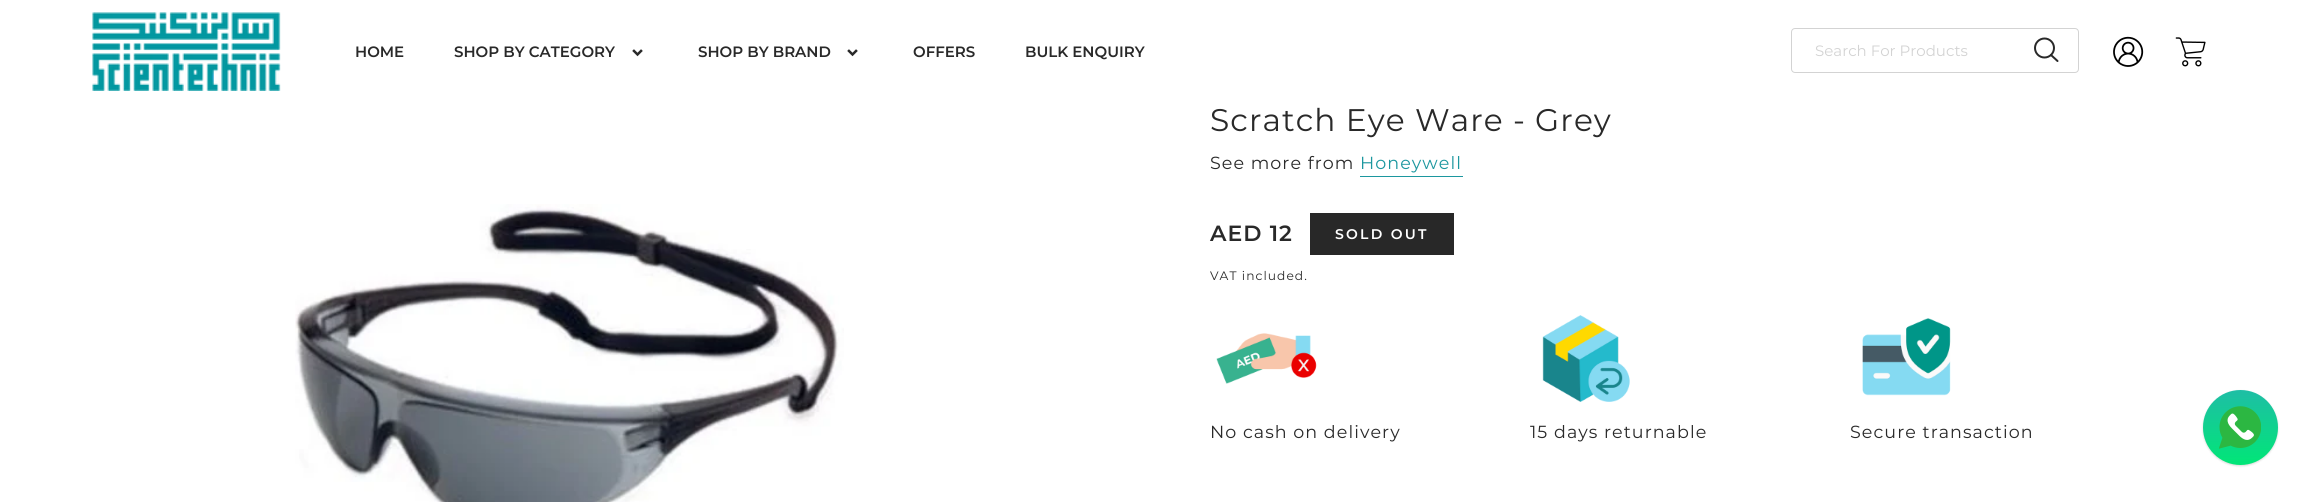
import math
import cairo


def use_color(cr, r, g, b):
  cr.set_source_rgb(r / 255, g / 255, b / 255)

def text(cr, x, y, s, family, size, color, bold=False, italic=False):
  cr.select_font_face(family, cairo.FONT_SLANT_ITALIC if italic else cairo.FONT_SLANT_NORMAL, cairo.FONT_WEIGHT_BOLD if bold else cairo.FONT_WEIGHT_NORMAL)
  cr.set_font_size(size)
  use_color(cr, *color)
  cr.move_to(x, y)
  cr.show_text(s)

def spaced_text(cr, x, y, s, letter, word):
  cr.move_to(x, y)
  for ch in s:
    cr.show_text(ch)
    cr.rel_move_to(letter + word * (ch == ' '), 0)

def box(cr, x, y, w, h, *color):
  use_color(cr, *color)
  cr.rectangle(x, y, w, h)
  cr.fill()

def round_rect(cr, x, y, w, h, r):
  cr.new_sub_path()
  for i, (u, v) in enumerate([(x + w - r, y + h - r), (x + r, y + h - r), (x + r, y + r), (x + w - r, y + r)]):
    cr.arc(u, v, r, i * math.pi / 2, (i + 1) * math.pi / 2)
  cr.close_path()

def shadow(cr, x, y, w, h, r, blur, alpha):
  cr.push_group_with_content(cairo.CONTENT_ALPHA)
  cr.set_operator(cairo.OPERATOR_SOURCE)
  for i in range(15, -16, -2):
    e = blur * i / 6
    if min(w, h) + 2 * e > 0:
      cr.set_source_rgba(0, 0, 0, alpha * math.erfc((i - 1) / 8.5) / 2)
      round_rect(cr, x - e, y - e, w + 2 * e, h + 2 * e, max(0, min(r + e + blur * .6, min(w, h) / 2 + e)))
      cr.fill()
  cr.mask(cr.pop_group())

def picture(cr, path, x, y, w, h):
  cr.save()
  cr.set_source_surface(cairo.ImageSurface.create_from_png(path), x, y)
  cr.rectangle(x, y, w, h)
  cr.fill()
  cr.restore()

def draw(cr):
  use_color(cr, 255, 255, 255)
  cr.paint()
  picture(cr, "img_01.png", 92, 12, 189, 79)
  picture(cr, "img_02.png", 632, 49, 11, 8)
  picture(cr, "img_02.png", 847, 49, 11, 8)
  round_rect(cr, 1791.5, 28.5, 287, 44, 3.5)
  use_color(cr, 211, 211, 211)
  cr.set_line_width(1)
  cr.stroke()
  cr.arc(2044.5, 48, 9.5, 0, 2 * math.pi)
  use_color(cr, 41, 41, 41)
  cr.set_line_width(2)
  cr.stroke()
  cr.new_path()
  cr.move_to(2057.5, 61)
  cr.line_to(2051, 55)
  cr.set_line_cap(cairo.LINE_CAP_ROUND)
  cr.set_line_join(cairo.LINE_JOIN_ROUND)
  cr.stroke()
  picture(cr, "img_03.png", 2113, 36, 31, 31)
  picture(cr, "img_04.png", 2175, 37, 31, 30)
  picture(cr, "img_05.png", 295, 204, 549, 298)
  box(cr, 1360, 176, 103, 1, 28, 151, 159)
  box(cr, 1310, 213, 144, 42, 40, 40, 40)
  picture(cr, "img_06.png", 1216, 333, 101, 51)
  picture(cr, "img_07.png", 1542, 315, 88, 87)
  picture(cr, "img_08.png", 1862, 318, 89, 78)
  use_color(cr, 0, 0, 0)
  shadow(cr, 2203, 391, 75, 75, 37.5, 1, 0.15)
  gradient = cairo.LinearGradient(2240, 390, 2240, 465)
  gradient.add_color_stop_rgba(0, 0.118, 0.745, 0.647, 1)
  gradient.add_color_stop_rgba(1, 0.004, 0.902, 0.467, 1)
  cr.set_source(gradient)
  cr.arc(2240.5, 427.5, 37.5, 0, 2 * math.pi)
  cr.fill()
  picture(cr, "img_09.png", 2219, 406, 42, 43)
  text(cr, 355, 57, "HOME", "Montserrat SemiBold", 15, (41, 41, 41))
  text(cr, 454, 57, "SHOP BY CATEGORY", "Montserrat SemiBold", 15, (41, 41, 41))
  text(cr, 698, 57, "SHOP BY BRAND", "Montserrat SemiBold", 15, (41, 41, 41))
  text(cr, 913, 57, "OFFERS", "Montserrat SemiBold", 15, (41, 41, 41))
  text(cr, 1025, 57, "BULK ENQUIRY", "Montserrat SemiBold", 15, (41, 41, 41))
  text(cr, 1815, 56, "Search For Products", "Montserrat", 15, (211, 211, 211))
  cr.set_font_size(31.25)
  use_color(cr, 41, 41, 41)
  spaced_text(cr, 1210, 131, "Scratch Eye Ware - Grey", 1.05, 0)
  cr.set_font_size(17.5)
  spaced_text(cr, 1210, 169, "See more from", 1.05, 0)
  use_color(cr, 28, 151, 159)
  spaced_text(cr, 1360, 169, "Honeywell", 1.05, 0)
  cr.select_font_face("Montserrat SemiBold")
  cr.set_font_size(22)
  use_color(cr, 41, 41, 41)
  spaced_text(cr, 1210, 241, "AED 12", 1.05, 0)
  cr.set_font_size(14)
  use_color(cr, 255, 255, 255)
  spaced_text(cr, 1335, 239, "SOLD OUT", 2.25, 0)
  cr.select_font_face("Montserrat")
  cr.set_font_size(12.25)
  use_color(cr, 41, 41, 41)
  spaced_text(cr, 1210, 280, "VAT included.", 1.05, 0)
  cr.set_font_size(17.5)
  spaced_text(cr, 1210, 438, "No cash on delivery", 1.05, 0)
  spaced_text(cr, 1530, 438, "15 days returnable", 1.05, 0)
  spaced_text(cr, 1850, 438, "Secure transaction", 1.05, 0)


surface = cairo.ImageSurface(cairo.FORMAT_RGB24, 2315, 502)
cr = cairo.Context(surface)
options = cairo.FontOptions()
options.set_hint_metrics(cairo.HINT_METRICS_OFF)
options.set_hint_style(cairo.HINT_STYLE_NONE)
cr.set_font_options(options)
cr.set_miter_limit(4)
draw(cr)
surface.write_to_png("out.png")
